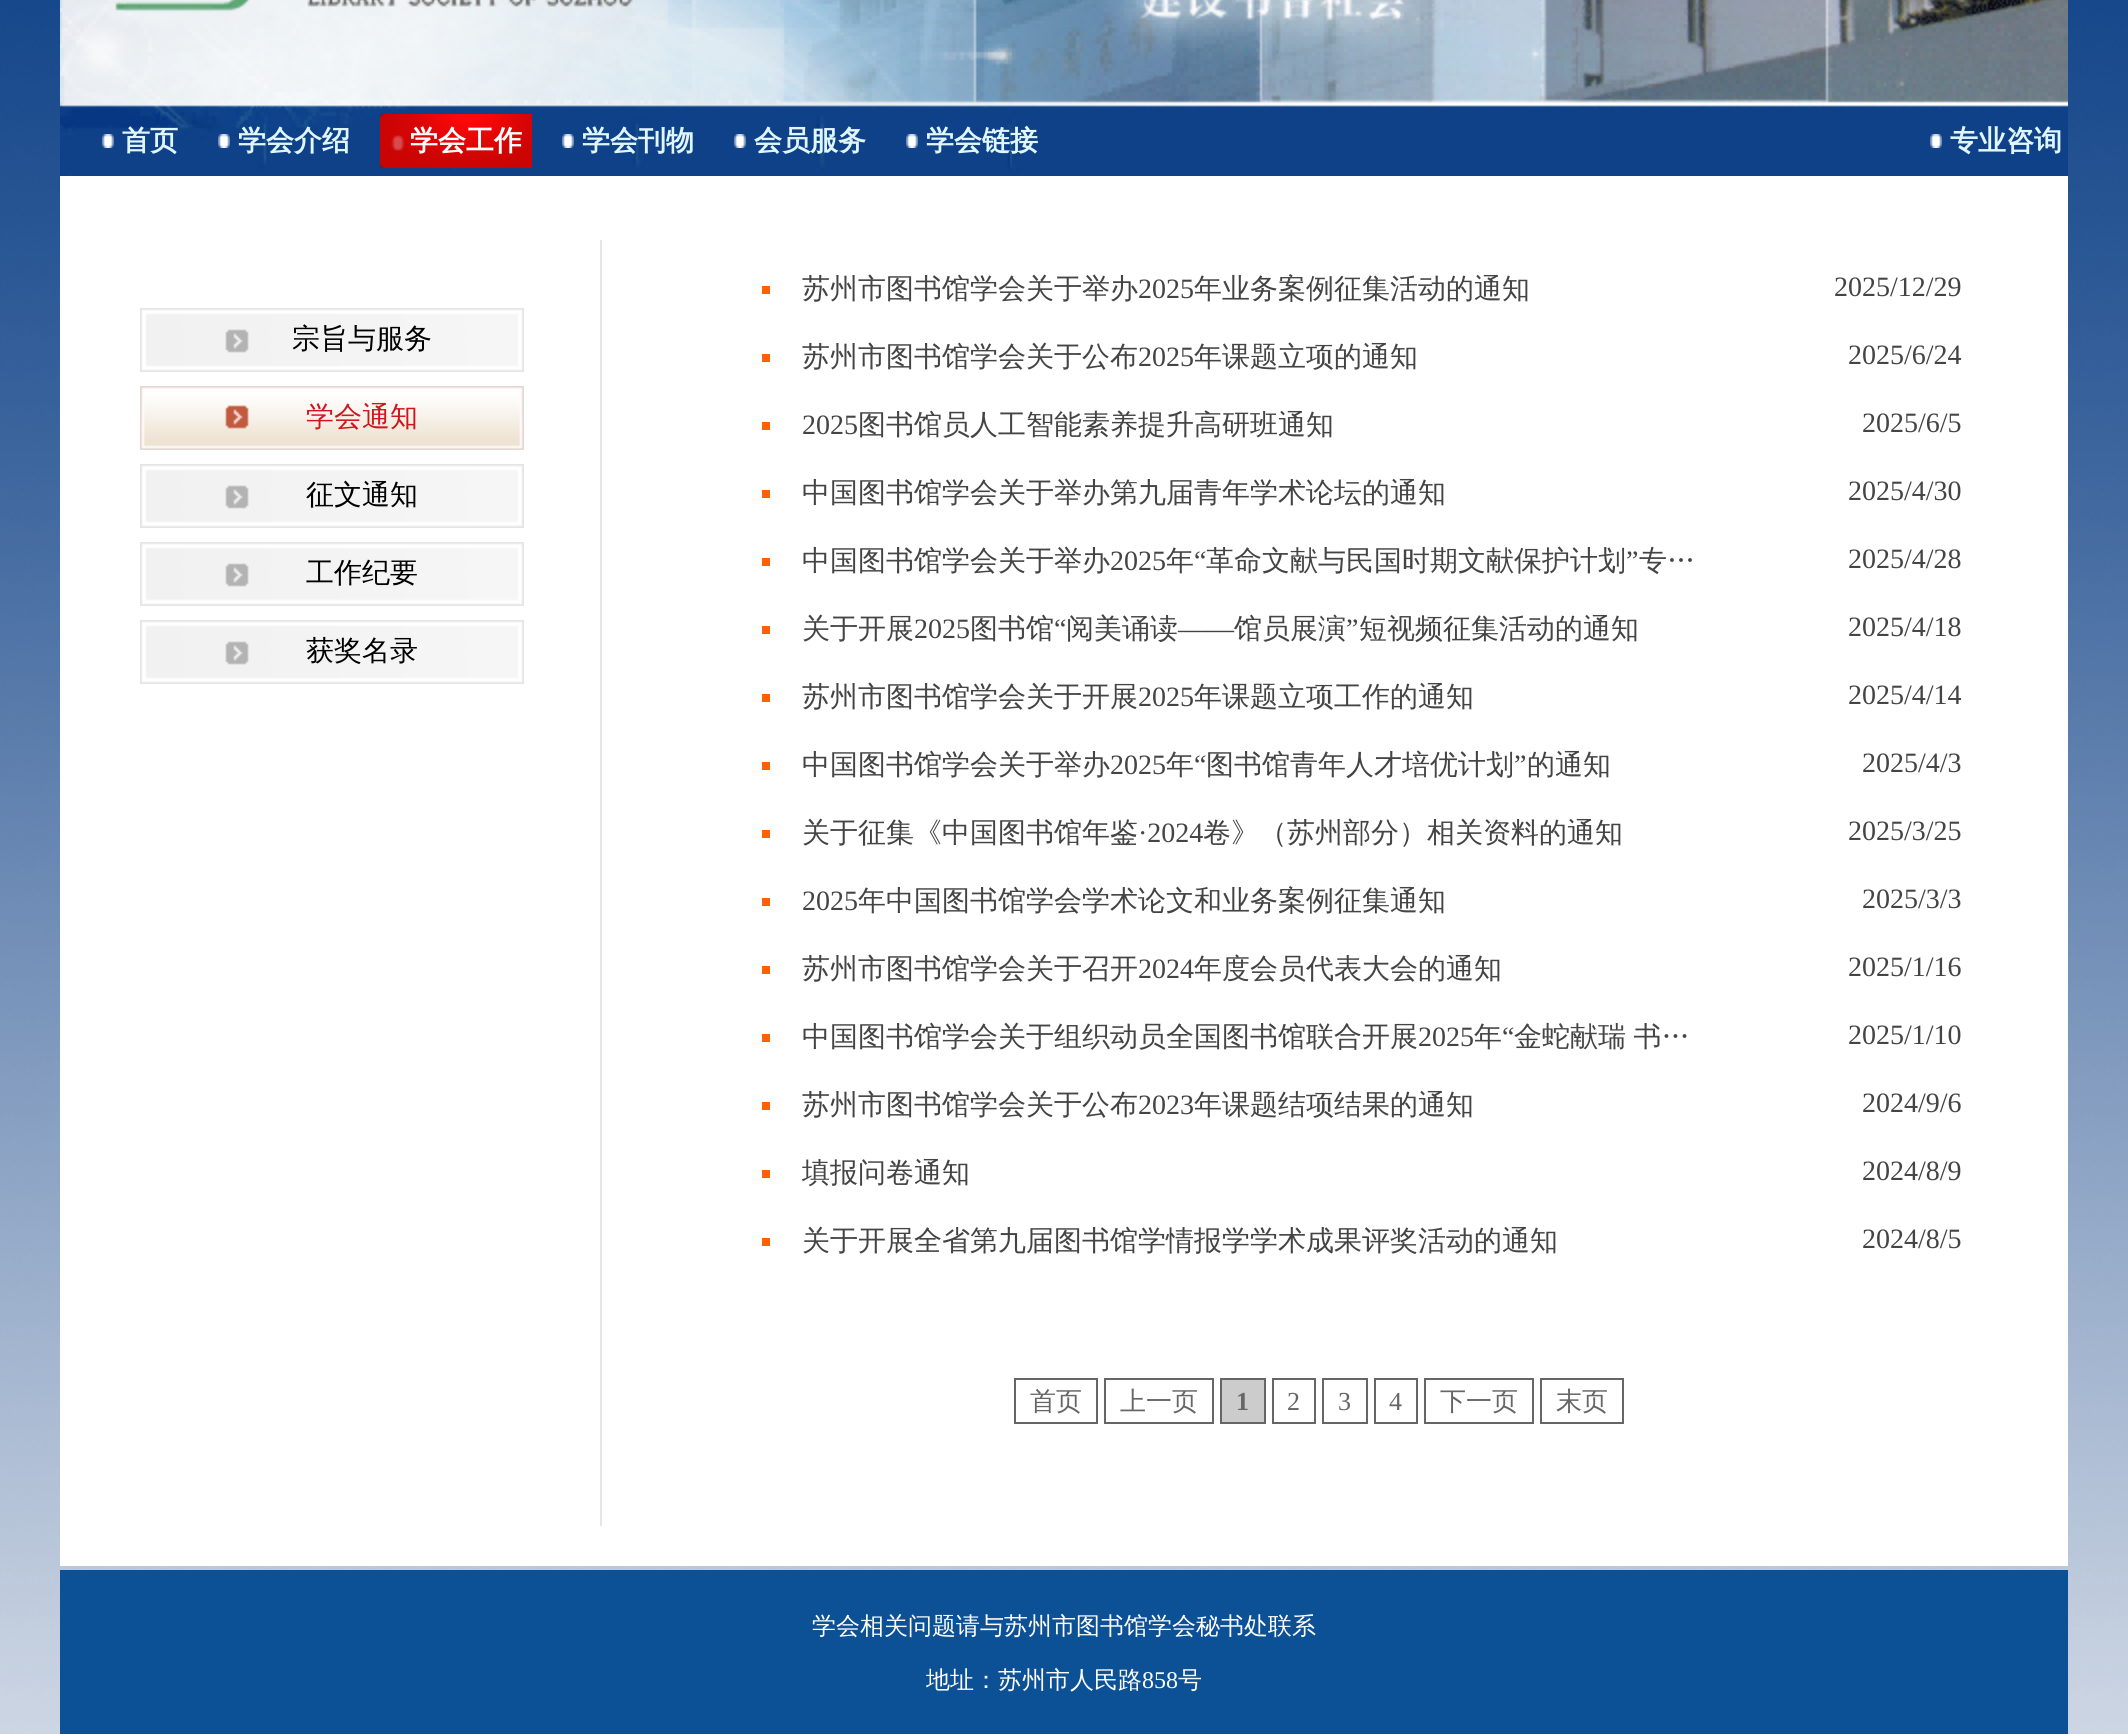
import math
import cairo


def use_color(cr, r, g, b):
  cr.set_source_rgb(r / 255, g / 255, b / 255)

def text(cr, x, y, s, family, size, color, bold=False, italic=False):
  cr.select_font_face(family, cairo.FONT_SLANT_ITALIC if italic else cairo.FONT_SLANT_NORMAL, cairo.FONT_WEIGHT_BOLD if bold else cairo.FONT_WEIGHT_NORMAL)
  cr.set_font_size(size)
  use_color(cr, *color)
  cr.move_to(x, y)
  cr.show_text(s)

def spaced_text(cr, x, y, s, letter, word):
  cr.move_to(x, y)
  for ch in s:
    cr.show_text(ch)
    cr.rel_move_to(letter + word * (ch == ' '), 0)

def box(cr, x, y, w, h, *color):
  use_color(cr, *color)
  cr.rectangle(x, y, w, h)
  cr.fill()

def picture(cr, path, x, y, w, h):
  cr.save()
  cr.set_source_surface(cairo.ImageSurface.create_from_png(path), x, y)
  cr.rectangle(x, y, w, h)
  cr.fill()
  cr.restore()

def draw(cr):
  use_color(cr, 255, 255, 255)
  cr.paint()
  picture(cr, "img_01.png", 0, 0, 2128, 1734)
  picture(cr, "img_02.png", 60, 0, 2008, 176)
  picture(cr, "img_03.png", 102, 134, 12, 14)
  picture(cr, "img_03.png", 218, 134, 12, 14)
  picture(cr, "img_04.png", 380, 114, 152, 54)
  picture(cr, "img_03.png", 562, 134, 12, 14)
  picture(cr, "img_03.png", 734, 134, 12, 14)
  picture(cr, "img_03.png", 906, 134, 12, 14)
  picture(cr, "img_03.png", 1930, 134, 12, 14)
  box(cr, 60, 176, 2008, 1390, 255, 255, 255)
  picture(cr, "img_05.png", 140, 308, 384, 64)
  picture(cr, "img_06.png", 140, 386, 384, 64)
  picture(cr, "img_05.png", 140, 464, 384, 64)
  picture(cr, "img_05.png", 140, 542, 384, 64)
  picture(cr, "img_05.png", 140, 620, 384, 64)
  box(cr, 600, 240, 2, 1286, 230, 230, 230)
  box(cr, 762, 286, 8, 8, 255, 96, 0)
  box(cr, 762, 354, 8, 8, 255, 96, 0)
  box(cr, 762, 422, 8, 8, 255, 96, 0)
  box(cr, 762, 490, 8, 8, 255, 96, 0)
  box(cr, 762, 558, 8, 8, 255, 96, 0)
  box(cr, 762, 626, 8, 8, 255, 96, 0)
  box(cr, 762, 694, 8, 8, 255, 96, 0)
  box(cr, 762, 762, 8, 8, 255, 96, 0)
  box(cr, 762, 830, 8, 8, 255, 96, 0)
  box(cr, 762, 898, 8, 8, 255, 96, 0)
  box(cr, 762, 966, 8, 8, 255, 96, 0)
  box(cr, 762, 1034, 8, 8, 255, 96, 0)
  box(cr, 762, 1102, 8, 8, 255, 96, 0)
  box(cr, 762, 1170, 8, 8, 255, 96, 0)
  box(cr, 762, 1238, 8, 8, 255, 96, 0)
  cr.rectangle(1015, 1379, 82, 44)
  use_color(cr, 102, 102, 102)
  cr.stroke()
  cr.rectangle(1105, 1379, 108, 44)
  cr.stroke()
  use_color(cr, 204, 204, 204)
  cr.rectangle(1221, 1379, 44, 44)
  cr.fill_preserve()
  use_color(cr, 102, 102, 102)
  cr.stroke()
  cr.rectangle(1273, 1379, 42, 44)
  cr.stroke()
  cr.rectangle(1323, 1379, 44, 44)
  cr.stroke()
  cr.rectangle(1375, 1379, 42, 44)
  cr.stroke()
  cr.rectangle(1425, 1379, 108, 44)
  cr.stroke()
  cr.rectangle(1541, 1379, 82, 44)
  cr.stroke()
  box(cr, 60, 1570, 2008, 164, 12, 80, 149)
  text(cr, 122, 150, "首页", "WenQuanYi Zen Hei", 28, (224, 246, 255), bold=True)
  text(cr, 238, 150, "学会介绍", "WenQuanYi Zen Hei", 28, (224, 246, 255), bold=True)
  text(cr, 410, 150, "学会工作", "WenQuanYi Zen Hei", 28, (255, 255, 255), bold=True)
  text(cr, 582, 150, "学会刊物", "WenQuanYi Zen Hei", 28, (224, 246, 255), bold=True)
  text(cr, 754, 150, "会员服务", "WenQuanYi Zen Hei", 28, (224, 246, 255), bold=True)
  text(cr, 926, 150, "学会链接", "WenQuanYi Zen Hei", 28, (224, 246, 255), bold=True)
  text(cr, 1950, 150, "专业咨询", "WenQuanYi Zen Hei", 28, (224, 246, 255), bold=True)
  text(cr, 292, 348, "宗旨与服务", "WenQuanYi Zen Hei Medium", 28, (1, 0, 0))
  text(cr, 306, 426, "学会通知", "WenQuanYi Zen Hei Medium", 28, (206, 22, 29))
  text(cr, 306, 504, "征文通知", "WenQuanYi Zen Hei Medium", 28, (1, 0, 0))
  text(cr, 306, 582, "工作纪要", "WenQuanYi Zen Hei Medium", 28, (1, 0, 0))
  text(cr, 306, 660, "获奖名录", "WenQuanYi Zen Hei Medium", 28, (1, 0, 0))
  text(cr, 802, 298, "苏州市图书馆学会关于举办", "WenQuanYi Zen Hei Medium", 28, (68, 68, 68))
  text(cr, 1138, 298, "2025", "Liberation Serif", 28, (68, 68, 68))
  text(cr, 1194, 298, "年业务案例征集活动的通知", "WenQuanYi Zen Hei Medium", 28, (68, 68, 68))
  text(cr, 1834, 296, "2025/12/29", "Liberation Serif", 28, (68, 68, 68))
  text(cr, 802, 366, "苏州市图书馆学会关于公布", "WenQuanYi Zen Hei Medium", 28, (68, 68, 68))
  text(cr, 1138, 366, "2025", "Liberation Serif", 28, (68, 68, 68))
  text(cr, 1194, 366, "年课题立项的通知", "WenQuanYi Zen Hei Medium", 28, (68, 68, 68))
  text(cr, 1848, 364, "2025/6/24", "Liberation Serif", 28, (68, 68, 68))
  text(cr, 802, 434, "2025", "Liberation Serif", 28, (68, 68, 68))
  text(cr, 858, 434, "图书馆员人工智能素养提升高研班通知", "WenQuanYi Zen Hei Medium", 28, (68, 68, 68))
  text(cr, 1862, 432, "2025/6/5", "Liberation Serif", 28, (68, 68, 68))
  text(cr, 802, 502, "中国图书馆学会关于举办第九届青年学术论坛的通知", "WenQuanYi Zen Hei Medium", 28, (68, 68, 68))
  text(cr, 1848, 500, "2025/4/30", "Liberation Serif", 28, (68, 68, 68))
  text(cr, 802, 570, "中国图书馆学会关于举办", "WenQuanYi Zen Hei Medium", 28, (68, 68, 68))
  text(cr, 1110, 570, "2025", "Liberation Serif", 28, (68, 68, 68))
  text(cr, 1166, 570, "年", "WenQuanYi Zen Hei Medium", 28, (68, 68, 68))
  text(cr, 1194, 570, "“", "Liberation Serif", 28, (68, 68, 68))
  text(cr, 1206, 570, "革命文献与民国时期文献保护计划", "WenQuanYi Zen Hei Medium", 28, (68, 68, 68))
  text(cr, 1626, 570, "”", "Liberation Serif", 28, (68, 68, 68))
  text(cr, 1639, 570, "专…", "WenQuanYi Zen Hei Medium", 28, (68, 68, 68))
  text(cr, 1848, 568, "2025/4/28", "Liberation Serif", 28, (68, 68, 68))
  text(cr, 802, 638, "关于开展", "WenQuanYi Zen Hei Medium", 28, (68, 68, 68))
  text(cr, 914, 638, "2025", "Liberation Serif", 28, (68, 68, 68))
  text(cr, 970, 638, "图书馆", "WenQuanYi Zen Hei Medium", 28, (68, 68, 68))
  text(cr, 1054, 638, "“", "Liberation Serif", 28, (68, 68, 68))
  text(cr, 1066, 638, "阅美诵读", "WenQuanYi Zen Hei Medium", 28, (68, 68, 68))
  text(cr, 1346, 638, "”", "Liberation Serif", 28, (68, 68, 68))
  text(cr, 1359, 638, "短视频征集活动的通知", "WenQuanYi Zen Hei Medium", 28, (68, 68, 68))
  text(cr, 1178, 638, "——", "Liberation Serif", 28, (68, 68, 68))
  text(cr, 1234, 638, "馆员展演", "WenQuanYi Zen Hei Medium", 28, (68, 68, 68))
  text(cr, 1848, 636, "2025/4/18", "Liberation Serif", 28, (68, 68, 68))
  text(cr, 802, 706, "苏州市图书馆学会关于开展", "WenQuanYi Zen Hei Medium", 28, (68, 68, 68))
  text(cr, 1138, 706, "2025", "Liberation Serif", 28, (68, 68, 68))
  text(cr, 1194, 706, "年课题立项工作的通知", "WenQuanYi Zen Hei Medium", 28, (68, 68, 68))
  text(cr, 1848, 704, "2025/4/14", "Liberation Serif", 28, (68, 68, 68))
  text(cr, 802, 774, "中国图书馆学会关于举办", "WenQuanYi Zen Hei Medium", 28, (68, 68, 68))
  text(cr, 1110, 774, "2025", "Liberation Serif", 28, (68, 68, 68))
  text(cr, 1166, 774, "年", "WenQuanYi Zen Hei Medium", 28, (68, 68, 68))
  text(cr, 1194, 774, "“", "Liberation Serif", 28, (68, 68, 68))
  text(cr, 1206, 774, "图书馆青年人才培优计划", "WenQuanYi Zen Hei Medium", 28, (68, 68, 68))
  text(cr, 1514, 774, "”", "Liberation Serif", 28, (68, 68, 68))
  text(cr, 1527, 774, "的通知", "WenQuanYi Zen Hei Medium", 28, (68, 68, 68))
  text(cr, 1862, 772, "2025/4/3", "Liberation Serif", 28, (68, 68, 68))
  text(cr, 802, 842, "关于征集《中国图书馆年鉴", "WenQuanYi Zen Hei Medium", 28, (68, 68, 68))
  text(cr, 1138, 842, "·2024", "Liberation Serif", 28, (68, 68, 68))
  text(cr, 1203, 842, "卷》（苏州部分）相关资料的通知", "WenQuanYi Zen Hei Medium", 28, (68, 68, 68))
  text(cr, 1848, 840, "2025/3/25", "Liberation Serif", 28, (68, 68, 68))
  text(cr, 802, 910, "2025", "Liberation Serif", 28, (68, 68, 68))
  text(cr, 858, 910, "年中国图书馆学会学术论文和业务案例征集通知", "WenQuanYi Zen Hei Medium", 28, (68, 68, 68))
  text(cr, 1862, 908, "2025/3/3", "Liberation Serif", 28, (68, 68, 68))
  text(cr, 802, 978, "苏州市图书馆学会关于召开", "WenQuanYi Zen Hei Medium", 28, (68, 68, 68))
  text(cr, 1138, 978, "2024", "Liberation Serif", 28, (68, 68, 68))
  text(cr, 1194, 978, "年度会员代表大会的通知", "WenQuanYi Zen Hei Medium", 28, (68, 68, 68))
  text(cr, 1848, 976, "2025/1/16", "Liberation Serif", 28, (68, 68, 68))
  text(cr, 802, 1046, "中国图书馆学会关于组织动员全国图书馆联合开展", "WenQuanYi Zen Hei Medium", 28, (68, 68, 68))
  text(cr, 1418, 1046, "2025", "Liberation Serif", 28, (68, 68, 68))
  text(cr, 1474, 1046, "年", "WenQuanYi Zen Hei Medium", 28, (68, 68, 68))
  text(cr, 1502, 1046, "“", "Liberation Serif", 28, (68, 68, 68))
  cr.select_font_face("WenQuanYi Zen Hei Medium")
  spaced_text(cr, 1514, 1046, "金蛇献瑞 书…", 0, -1)
  text(cr, 1848, 1044, "2025/1/10", "Liberation Serif", 28, (68, 68, 68))
  text(cr, 802, 1114, "苏州市图书馆学会关于公布", "WenQuanYi Zen Hei Medium", 28, (68, 68, 68))
  text(cr, 1138, 1114, "2023", "Liberation Serif", 28, (68, 68, 68))
  text(cr, 1194, 1114, "年课题结项结果的通知", "WenQuanYi Zen Hei Medium", 28, (68, 68, 68))
  text(cr, 1862, 1112, "2024/9/6", "Liberation Serif", 28, (68, 68, 68))
  text(cr, 802, 1182, "填报问卷通知", "WenQuanYi Zen Hei Medium", 28, (68, 68, 68))
  text(cr, 1862, 1180, "2024/8/9", "Liberation Serif", 28, (68, 68, 68))
  text(cr, 802, 1250, "关于开展全省第九届图书馆学情报学学术成果评奖活动的通知", "WenQuanYi Zen Hei Medium", 28, (68, 68, 68))
  text(cr, 1862, 1248, "2024/8/5", "Liberation Serif", 28, (68, 68, 68))
  text(cr, 1030, 1410, "首页", "WenQuanYi Zen Hei Medium", 26, (102, 102, 102))
  text(cr, 1120, 1410, "上一页", "WenQuanYi Zen Hei Medium", 26, (102, 102, 102))
  text(cr, 1236, 1410, "1", "Liberation Serif", 26, (102, 102, 102), bold=True)
  text(cr, 1287, 1410, "2", "Liberation Serif", 26, (102, 102, 102))
  text(cr, 1338, 1410, "3", "Liberation Serif", 26, (102, 102, 102))
  text(cr, 1389, 1410, "4", "Liberation Serif", 26, (102, 102, 102))
  text(cr, 1440, 1410, "下一页", "WenQuanYi Zen Hei Medium", 26, (102, 102, 102))
  text(cr, 1556, 1410, "末页", "WenQuanYi Zen Hei Medium", 26, (102, 102, 102))
  text(cr, 812, 1634, "学会相关问题请与苏州市图书馆学会秘书处联系", "WenQuanYi Zen Hei Medium", 24, (255, 255, 255))
  text(cr, 926, 1688, "地址：苏州市人民路", "WenQuanYi Zen Hei Medium", 24, (255, 255, 255))
  text(cr, 1142, 1688, "858", "Liberation Serif", 24, (255, 255, 255))
  text(cr, 1178, 1688, "号", "WenQuanYi Zen Hei Medium", 24, (255, 255, 255))


surface = cairo.ImageSurface(cairo.FORMAT_RGB24, 2128, 1734)
cr = cairo.Context(surface)
options = cairo.FontOptions()
options.set_hint_metrics(cairo.HINT_METRICS_OFF)
options.set_hint_style(cairo.HINT_STYLE_NONE)
cr.set_font_options(options)
cr.set_miter_limit(4)
draw(cr)
surface.write_to_png("out.png")
